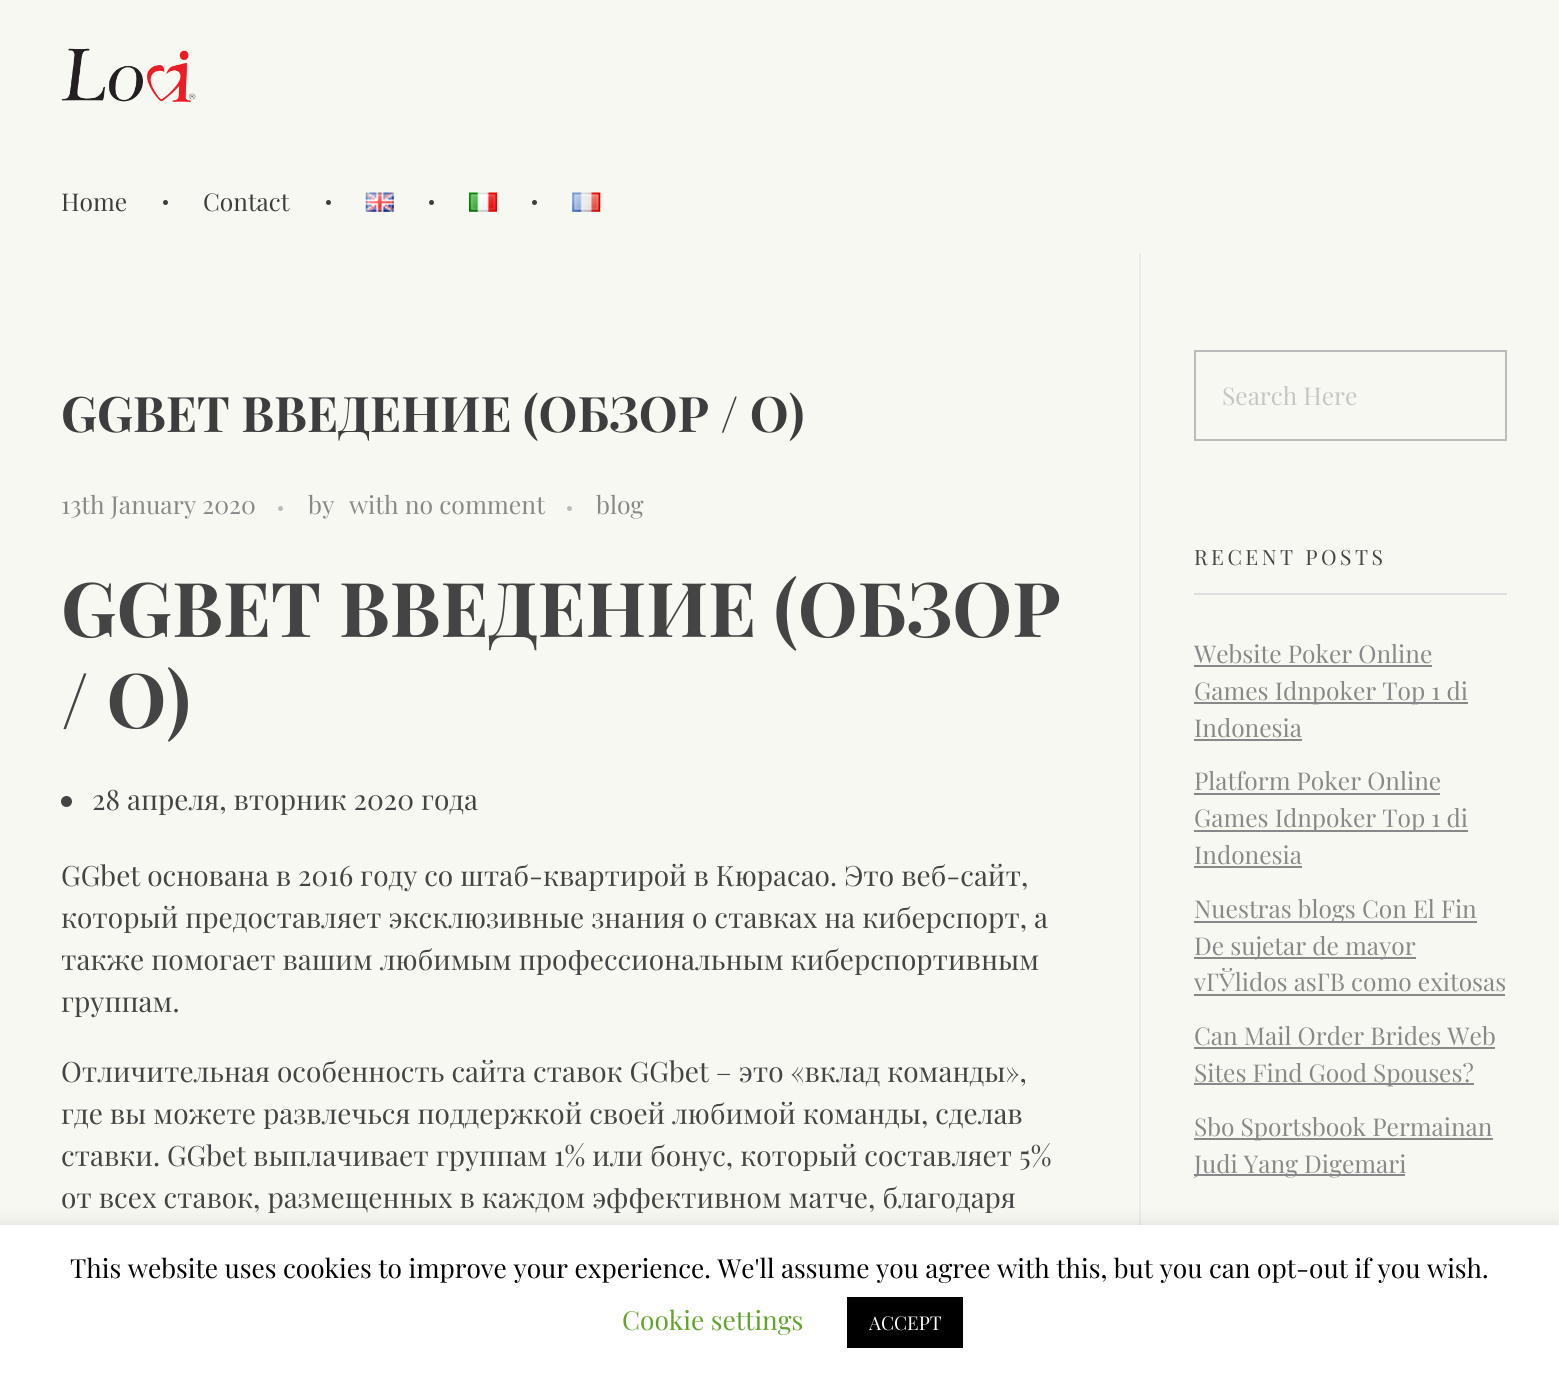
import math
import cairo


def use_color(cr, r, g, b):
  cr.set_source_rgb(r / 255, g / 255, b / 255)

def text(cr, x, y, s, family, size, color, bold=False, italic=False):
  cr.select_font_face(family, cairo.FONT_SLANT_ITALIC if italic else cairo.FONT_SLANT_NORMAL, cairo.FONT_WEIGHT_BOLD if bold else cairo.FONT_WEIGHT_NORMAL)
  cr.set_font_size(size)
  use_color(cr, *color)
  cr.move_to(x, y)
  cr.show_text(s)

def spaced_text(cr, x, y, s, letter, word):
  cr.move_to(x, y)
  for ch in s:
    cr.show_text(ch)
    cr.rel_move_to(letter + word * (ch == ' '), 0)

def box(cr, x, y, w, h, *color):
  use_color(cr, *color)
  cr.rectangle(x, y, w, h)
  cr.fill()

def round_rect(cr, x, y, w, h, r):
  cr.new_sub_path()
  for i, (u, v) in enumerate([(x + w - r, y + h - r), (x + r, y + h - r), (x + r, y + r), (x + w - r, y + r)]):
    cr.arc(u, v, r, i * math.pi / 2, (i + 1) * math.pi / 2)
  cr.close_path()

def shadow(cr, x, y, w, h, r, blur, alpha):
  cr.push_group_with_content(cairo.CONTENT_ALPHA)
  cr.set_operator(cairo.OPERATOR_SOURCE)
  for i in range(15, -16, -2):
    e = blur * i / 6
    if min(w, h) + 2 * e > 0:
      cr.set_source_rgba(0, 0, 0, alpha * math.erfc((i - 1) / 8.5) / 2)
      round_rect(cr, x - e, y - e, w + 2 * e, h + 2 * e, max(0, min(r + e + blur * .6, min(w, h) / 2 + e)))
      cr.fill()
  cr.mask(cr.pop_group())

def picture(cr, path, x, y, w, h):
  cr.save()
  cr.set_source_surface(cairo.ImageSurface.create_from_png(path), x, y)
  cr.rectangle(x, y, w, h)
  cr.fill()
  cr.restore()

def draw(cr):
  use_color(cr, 248, 248, 242)
  cr.paint()
  picture(cr, "img_01.png", 61, 48, 135, 54)
  use_color(cr, 61, 61, 61)
  cr.arc(165.5, 202.5, 2.5, 0, 2 * math.pi)
  cr.fill()
  cr.arc(328.5, 202.5, 2.5, 0, 2 * math.pi)
  cr.fill()
  picture(cr, "img_02.png", 365, 192, 29, 20)
  cr.arc(431.5, 202.5, 2.5, 0, 2 * math.pi)
  cr.fill()
  picture(cr, "img_03.png", 469, 192, 28, 20)
  cr.arc(534.5, 202.5, 2.5, 0, 2 * math.pi)
  cr.fill()
  picture(cr, "img_04.png", 572, 192, 29, 20)
  use_color(cr, 187, 187, 187)
  cr.arc(280.5, 508.5, 2.5, 0, 2 * math.pi)
  cr.fill()
  cr.arc(569.5, 508.5, 2.5, 0, 2 * math.pi)
  cr.fill()
  use_color(cr, 68, 68, 68)
  cr.arc(66.5, 801.5, 5.5, 0, 2 * math.pi)
  cr.fill()
  box(cr, 1139, 254, 2, 971, 234, 234, 234)
  cr.rectangle(1195, 351, 311, 89)
  use_color(cr, 187, 187, 187)
  cr.stroke()
  box(cr, 1194, 593, 313, 2, 222, 222, 222)
  box(cr, 1194, 665, 238, 2, 136, 136, 136)
  box(cr, 1194, 702, 274, 2, 136, 136, 136)
  box(cr, 1194, 739, 108, 2, 136, 136, 136)
  box(cr, 1194, 793, 246, 2, 136, 136, 136)
  box(cr, 1194, 830, 274, 2, 136, 136, 136)
  box(cr, 1194, 866, 108, 2, 136, 136, 136)
  box(cr, 1194, 921, 283, 2, 136, 136, 136)
  box(cr, 1194, 957, 222, 2, 136, 136, 136)
  box(cr, 1194, 994, 311, 2, 136, 136, 136)
  box(cr, 1194, 1047, 301, 2, 136, 136, 136)
  box(cr, 1194, 1083, 280, 2, 136, 136, 136)
  box(cr, 1194, 1138, 299, 2, 136, 136, 136)
  box(cr, 1194, 1174, 211, 2, 136, 136, 136)
  use_color(cr, 172, 171, 171)
  shadow(cr, 0, 1223, 1559, 153, 0, 9, 0.3)
  box(cr, 0, 1225, 1559, 151, 255, 255, 255)
  box(cr, 847, 1297, 116, 51, 0, 0, 0)
  text(cr, 61, 211, "Home", "Playfair Display", 24.5, (61, 61, 61))
  text(cr, 203, 211, "Contact", "Playfair Display", 24.5, (61, 61, 61))
  text(cr, 61, 432, "GGBET ВВЕДЕНИЕ (ОБЗОР / О)", "Playfair Display", 49, (61, 61, 61), bold=True)
  text(cr, 61, 514, "13th January 2020", "Playfair Display", 24.75, (136, 136, 136))
  text(cr, 308, 514, "by", "Playfair Display", 24.75, (136, 136, 136))
  text(cr, 349, 514, "with no comment", "Playfair Display", 24.75, (136, 136, 136))
  text(cr, 596, 514, "blog", "Playfair Display", 24.75, (136, 136, 136))
  text(cr, 61, 637, "GGBET ВВЕДЕНИЕ (ОБЗОР", "Playfair Display", 75.6, (68, 68, 68), bold=True)
  text(cr, 61, 728, "/ О)", "Playfair Display", 75.6, (68, 68, 68), bold=True)
  text(cr, 92, 810, "28 апреля, вторник 2020 года", "Playfair Display", 28, (68, 68, 68))
  text(cr, 61, 886, "GGbet основана в 2016 году со штаб-квартирой в Кюрасао. Это веб-сайт,", "Playfair Display", 28, (68, 68, 68))
  text(cr, 61, 928, "который предоставляет эксклюзивные знания о ставках на киберспорт, а", "Playfair Display", 28, (68, 68, 68))
  text(cr, 61, 970, "также помогает вашим любимым профессиональным киберспортивным", "Playfair Display", 28, (68, 68, 68))
  text(cr, 61, 1012, "группам.", "Playfair Display", 28, (68, 68, 68))
  text(cr, 61, 1082, "Отличительная особенность сайта ставок GGbet – это «вклад команды»,", "Playfair Display", 28, (68, 68, 68))
  text(cr, 61, 1124, "где вы можете развлечься поддержкой своей любимой команды, сделав", "Playfair Display", 28, (68, 68, 68))
  text(cr, 61, 1166, "ставки. GGbet выплачивает группам 1% или бонус, который составляет 5%", "Playfair Display", 28, (68, 68, 68))
  text(cr, 61, 1208, "от всех ставок, размещенных в каждом эффективном матче, благодаря", "Playfair Display", 28, (68, 68, 68))
  text(cr, 1222, 405, "Search Here", "Playfair Display", 24.5, (197, 197, 197))
  cr.set_font_size(21)
  use_color(cr, 68, 68, 68)
  spaced_text(cr, 1194, 565, "RECENT POSTS", 3.5, 0)
  text(cr, 1194, 663, "Website Poker Online", "Playfair Display", 24.5, (136, 136, 136))
  text(cr, 1194, 700, "Games Idnpoker Top 1 di", "Playfair Display", 24.5, (136, 136, 136))
  text(cr, 1194, 737, "Indonesia", "Playfair Display", 24.5, (136, 136, 136))
  text(cr, 1194, 790, "Platform Poker Online", "Playfair Display", 24.5, (136, 136, 136))
  text(cr, 1194, 827, "Games Idnpoker Top 1 di", "Playfair Display", 24.5, (136, 136, 136))
  text(cr, 1194, 864, "Indonesia", "Playfair Display", 24.5, (136, 136, 136))
  text(cr, 1194, 918, "Nuestras blogs Con El Fin", "Playfair Display", 24.5, (136, 136, 136))
  text(cr, 1194, 955, "De sujetar de mayor", "Playfair Display", 24.5, (136, 136, 136))
  text(cr, 1194, 991, "vГЎlidos asГВ como exitosas", "Playfair Display", 24.5, (136, 136, 136))
  text(cr, 1194, 1045, "Can Mail Order Brides Web", "Playfair Display", 24.5, (136, 136, 136))
  text(cr, 1194, 1082, "Sites Find Good Spouses?", "Playfair Display", 24.5, (136, 136, 136))
  text(cr, 1194, 1136, "Sbo Sportsbook Permainan", "Playfair Display", 24.5, (136, 136, 136))
  text(cr, 1194, 1173, "Judi Yang Digemari", "Playfair Display", 24.5, (136, 136, 136))
  text(cr, 70, 1278, "This website uses cookies to improve your experience. We'll assume you agree with this, but you can opt-out if you wish.", "Playfair Display", 26.25, (0, 0, 0))
  text(cr, 622, 1330, "Cookie settings", "Playfair Display", 26.25, (98, 163, 41))
  text(cr, 869, 1330, "ACCEPT", "Playfair Display", 19, (255, 255, 255))


surface = cairo.ImageSurface(cairo.FORMAT_RGB24, 1559, 1376)
cr = cairo.Context(surface)
options = cairo.FontOptions()
options.set_hint_metrics(cairo.HINT_METRICS_OFF)
options.set_hint_style(cairo.HINT_STYLE_NONE)
cr.set_font_options(options)
cr.set_miter_limit(4)
draw(cr)
surface.write_to_png("out.png")
